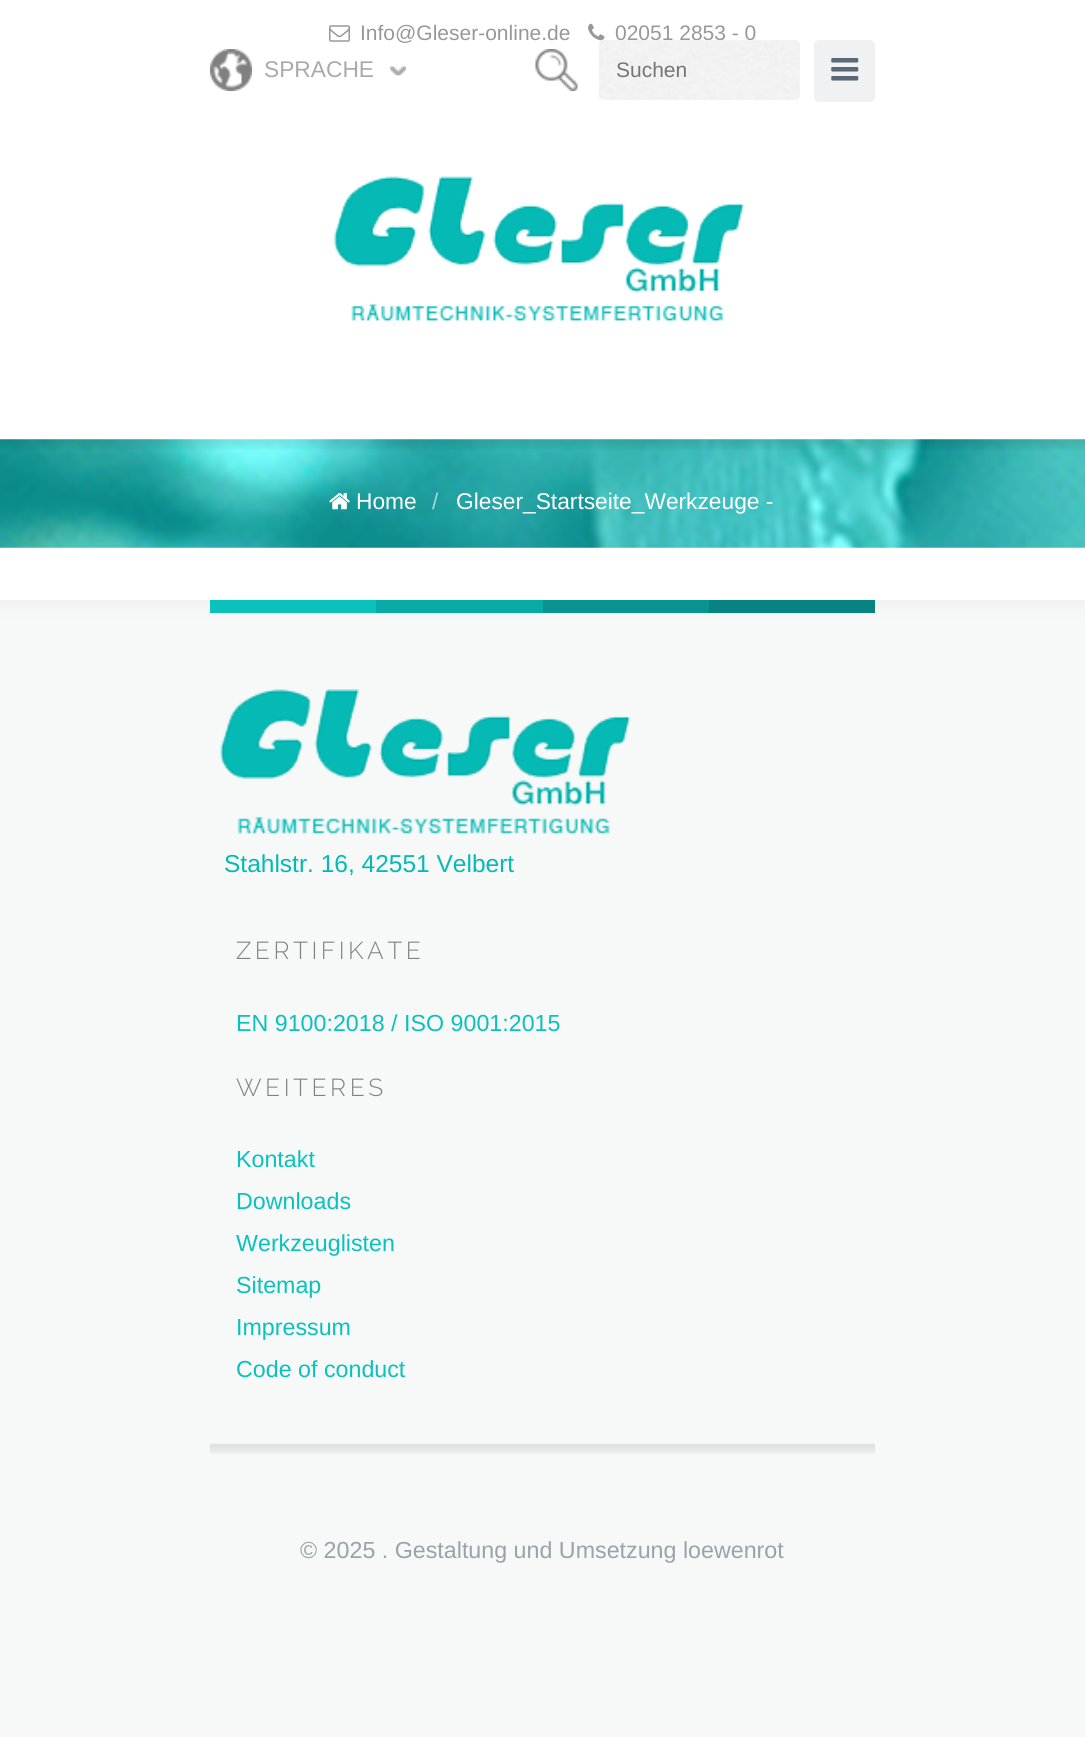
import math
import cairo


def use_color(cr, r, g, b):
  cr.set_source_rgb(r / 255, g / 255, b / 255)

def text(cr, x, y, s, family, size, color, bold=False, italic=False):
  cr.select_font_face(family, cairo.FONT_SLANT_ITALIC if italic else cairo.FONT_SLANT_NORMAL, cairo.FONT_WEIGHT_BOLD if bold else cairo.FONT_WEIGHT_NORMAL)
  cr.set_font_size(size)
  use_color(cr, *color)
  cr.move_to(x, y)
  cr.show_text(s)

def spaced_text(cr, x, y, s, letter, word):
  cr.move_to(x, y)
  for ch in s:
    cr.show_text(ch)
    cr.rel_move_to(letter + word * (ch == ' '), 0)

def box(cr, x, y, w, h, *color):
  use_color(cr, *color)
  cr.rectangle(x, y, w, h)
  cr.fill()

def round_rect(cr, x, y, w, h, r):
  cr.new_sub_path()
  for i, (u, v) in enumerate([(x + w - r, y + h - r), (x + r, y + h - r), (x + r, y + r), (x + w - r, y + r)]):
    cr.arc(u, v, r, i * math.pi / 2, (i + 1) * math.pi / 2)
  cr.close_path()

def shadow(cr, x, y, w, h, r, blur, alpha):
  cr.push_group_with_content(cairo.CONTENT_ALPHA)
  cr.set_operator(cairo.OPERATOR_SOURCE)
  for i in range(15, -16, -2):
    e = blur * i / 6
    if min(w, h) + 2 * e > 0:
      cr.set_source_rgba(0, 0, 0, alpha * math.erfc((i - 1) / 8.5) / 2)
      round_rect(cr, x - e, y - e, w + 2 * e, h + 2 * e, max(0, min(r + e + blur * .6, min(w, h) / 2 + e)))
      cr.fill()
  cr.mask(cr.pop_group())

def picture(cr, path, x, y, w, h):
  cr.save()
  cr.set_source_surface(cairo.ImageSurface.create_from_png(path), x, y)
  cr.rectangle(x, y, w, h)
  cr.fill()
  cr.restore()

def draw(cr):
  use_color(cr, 247, 248, 248)
  cr.paint()
  use_color(cr, 0, 0, 0)
  shadow(cr, 0, 0, 1085, 600, 0, 13, 0.06)
  box(cr, 0, 0, 1085, 600, 255, 255, 255)
  picture(cr, "img_01.png", 329, 25, 21, 17)
  picture(cr, "img_02.png", 588, 23, 17, 18)
  picture(cr, "img_03.png", 390, 66, 16, 10)
  picture(cr, "img_04.png", 210, 49, 42, 42)
  picture(cr, "img_05.png", 535, 49, 43, 42)
  use_color(cr, 239, 241, 242)
  round_rect(cr, 814, 40, 61, 62, 5)
  cr.fill()
  picture(cr, "img_07.png", 831, 58, 28, 23)
  picture(cr, "img_08.png", 333, 176, 412, 145)
  picture(cr, "img_10.png", 0, 439, 1085, 109)
  picture(cr, "img_09.png", 0, 439, 1085, 11)
  picture(cr, "img_11.png", 329, 493, 21, 17)
  box(cr, 210, 600, 166, 13, 11, 193, 189)
  box(cr, 376, 600, 167, 13, 10, 170, 166)
  box(cr, 543, 600, 166, 13, 8, 147, 144)
  box(cr, 709, 600, 166, 13, 7, 131, 129)
  picture(cr, "img_12.png", 220, 689, 411, 145)
  picture(cr, "img_13.png", 210, 1443, 665, 11)
  text(cr, 360, 40, "Info@Gleser-online.de", "Liberation Sans", 21, (152, 152, 152))
  text(cr, 615, 40, "02051 2853 - 0", "Liberation Sans", 21, (152, 152, 152))
  text(cr, 264, 77, "SPRACHE", "Liberation Sans", 22.75, (170, 170, 170))
  use_color(cr, 243, 243, 243)
  round_rect(cr, 599, 40, 201, 60, 5)
  cr.fill()
  picture(cr, "img_06.png", 599, 41, 200, 58)
  text(cr, 616, 77, "Suchen", "Liberation Sans", 21, (117, 117, 117))
  text(cr, 356, 509, "Home", "Liberation Sans", 22.75, (255, 255, 255))
  text(cr, 432, 509, "/", "Liberation Sans", 22.75, (164, 216, 216))
  text(cr, 456, 509, "Gleser_Startseite_Werkzeuge -", "Liberation Sans", 22.75, (255, 255, 255))
  text(cr, 224, 872, "Stahlstr. 16, 42551 Velbert", "Liberation Sans", 24.5, (5, 186, 181))
  cr.select_font_face("Raleway Light")
  use_color(cr, 129, 129, 129)
  spaced_text(cr, 236, 959, "ZERTIFIKATE", 3.5, 0)
  text(cr, 236, 1031, "EN 9100:2018 / ISO 9001:2015", "Liberation Sans", 23.25, (11, 193, 189))
  cr.select_font_face("Raleway Light")
  cr.set_font_size(24.5)
  use_color(cr, 129, 129, 129)
  spaced_text(cr, 236, 1096, "WEITERES", 3.5, 0)
  text(cr, 236, 1167, "Kontakt", "Liberation Sans", 23.25, (11, 193, 189))
  text(cr, 236, 1209, "Downloads", "Liberation Sans", 23.25, (11, 193, 189))
  text(cr, 236, 1251, "Werkzeuglisten", "Liberation Sans", 23.25, (11, 193, 189))
  text(cr, 236, 1293, "Sitemap", "Liberation Sans", 23.25, (11, 193, 189))
  text(cr, 236, 1335, "Impressum", "Liberation Sans", 23.25, (11, 193, 189))
  text(cr, 236, 1377, "Code of conduct", "Liberation Sans", 23.25, (11, 193, 189))
  text(cr, 300, 1558, "© 2025 . Gestaltung und Umsetzung loewenrot", "Liberation Sans", 23.25, (152, 163, 171))


surface = cairo.ImageSurface(cairo.FORMAT_RGB24, 1085, 1737)
cr = cairo.Context(surface)
options = cairo.FontOptions()
options.set_hint_metrics(cairo.HINT_METRICS_OFF)
options.set_hint_style(cairo.HINT_STYLE_NONE)
cr.set_font_options(options)
cr.set_miter_limit(4)
draw(cr)
surface.write_to_png("out.png")
